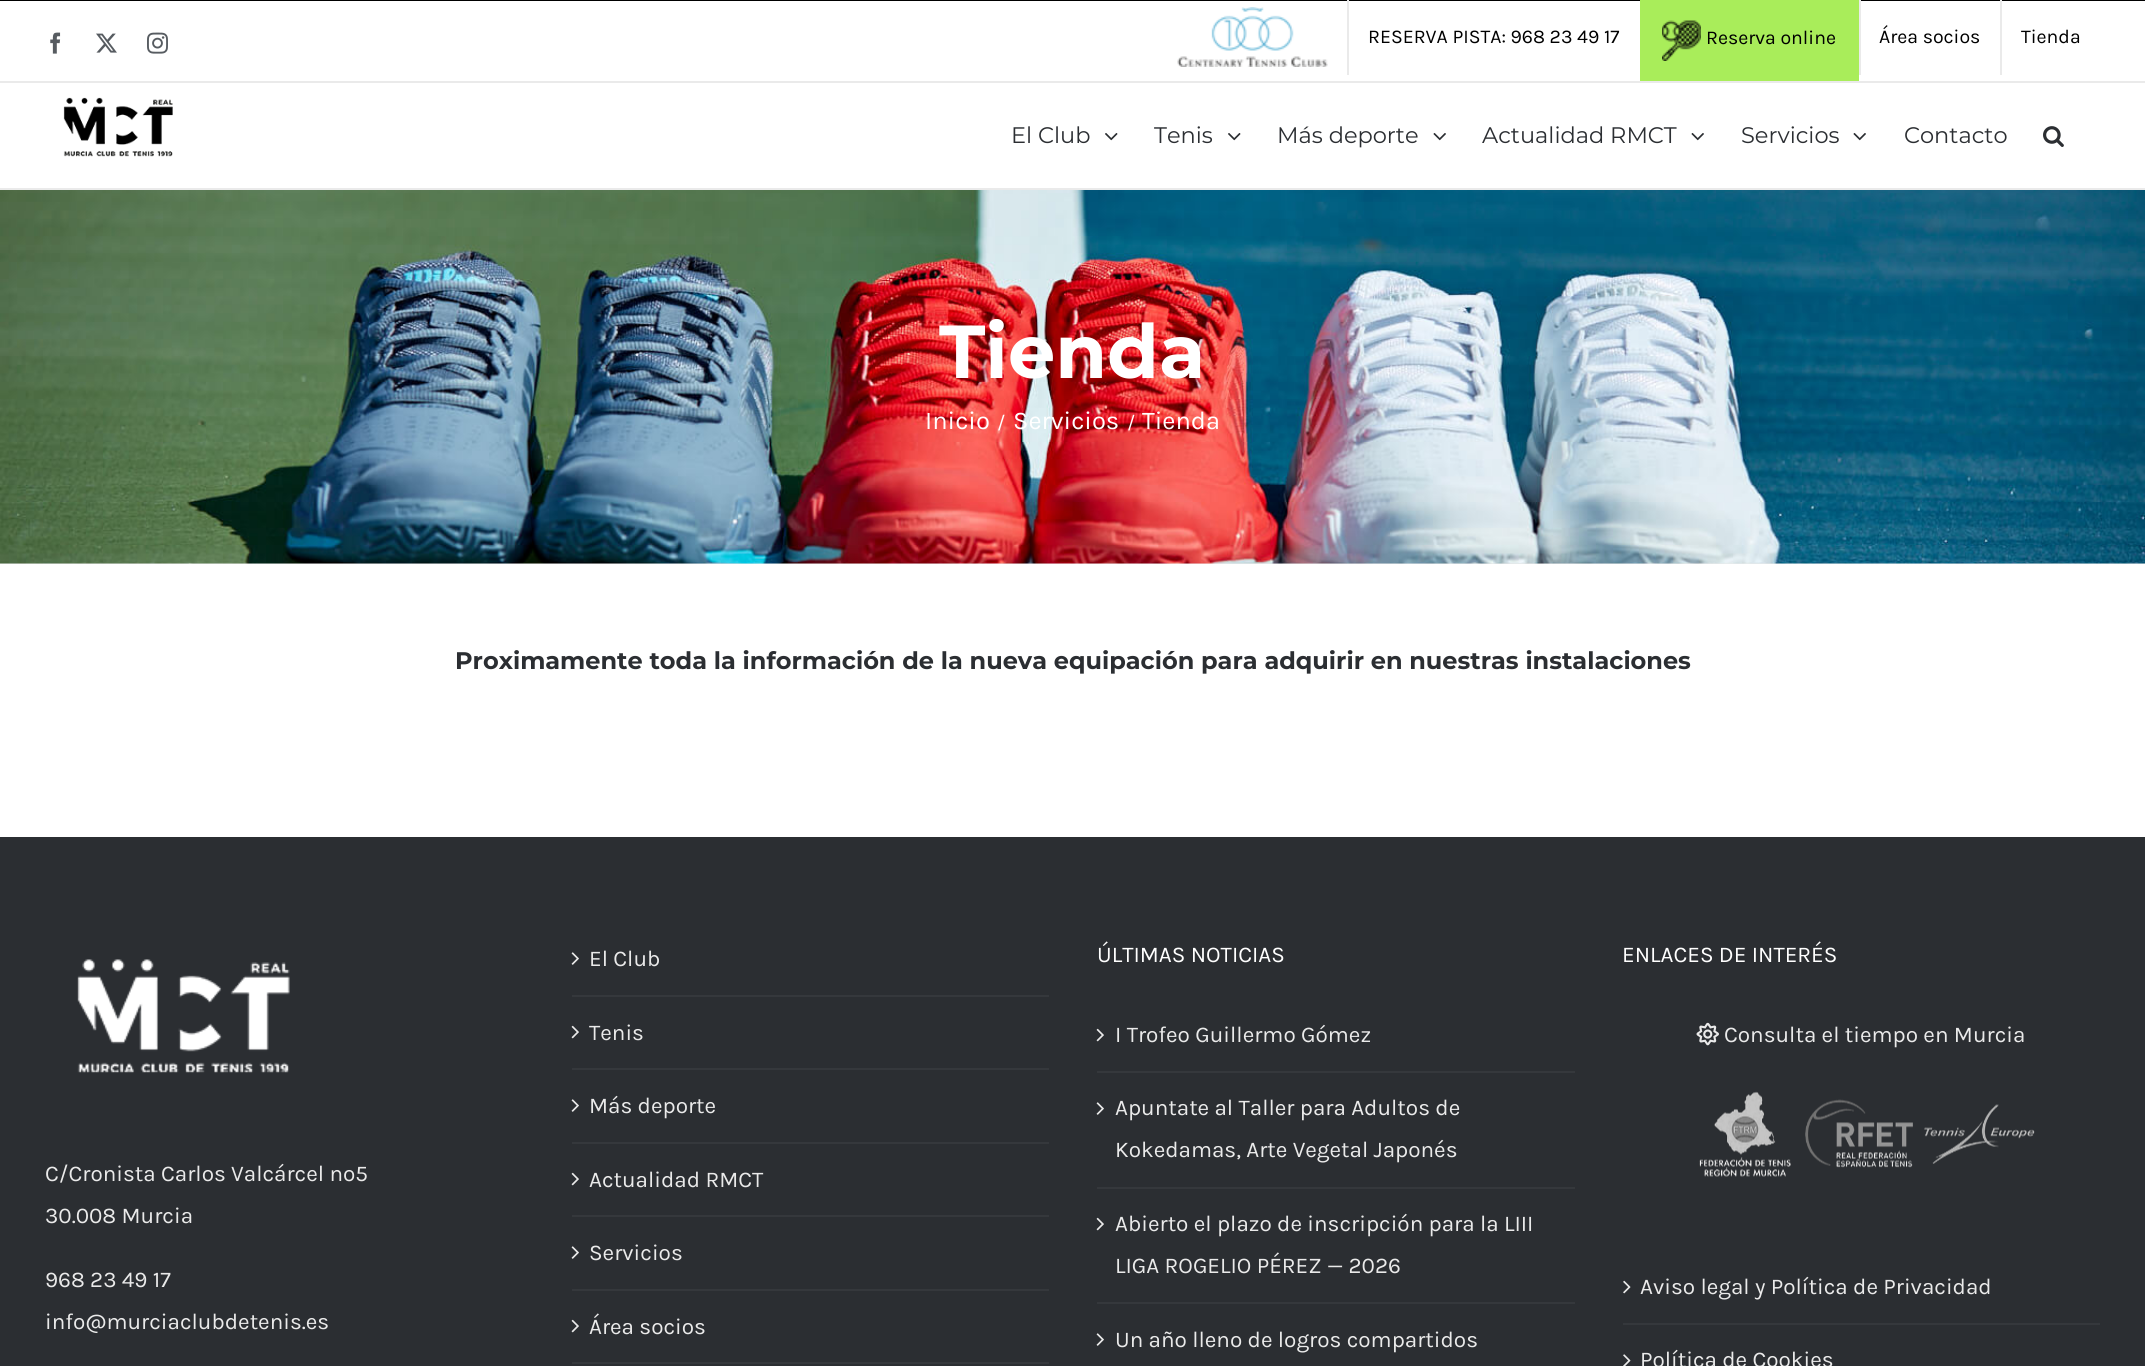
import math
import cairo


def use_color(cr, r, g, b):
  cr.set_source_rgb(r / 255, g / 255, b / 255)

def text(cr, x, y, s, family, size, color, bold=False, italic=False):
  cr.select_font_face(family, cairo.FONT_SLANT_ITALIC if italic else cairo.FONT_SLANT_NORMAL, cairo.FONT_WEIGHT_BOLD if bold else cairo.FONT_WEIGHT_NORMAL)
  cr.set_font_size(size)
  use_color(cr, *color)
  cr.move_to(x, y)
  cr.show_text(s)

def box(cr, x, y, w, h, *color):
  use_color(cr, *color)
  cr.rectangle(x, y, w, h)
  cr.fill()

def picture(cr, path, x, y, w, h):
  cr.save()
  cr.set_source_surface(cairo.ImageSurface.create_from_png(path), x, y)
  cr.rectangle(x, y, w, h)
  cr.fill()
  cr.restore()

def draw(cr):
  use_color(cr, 255, 255, 255)
  cr.paint()
  box(cr, 0, 0, 2145, 1, 0, 0, 0)
  box(cr, 0, 81, 2145, 2, 234, 234, 234)
  picture(cr, "img_01.png", 50, 32, 11, 22)
  picture(cr, "img_02.png", 96, 33, 21, 20)
  picture(cr, "img_03.png", 147, 32, 21, 22)
  picture(cr, "img_04.png", 1177, 7, 151, 60)
  box(cr, 1347, 0, 2, 75, 234, 234, 234)
  box(cr, 1640, 0, 219, 81, 169, 237, 90)
  picture(cr, "img_05.png", 1662, 20, 39, 41)
  box(cr, 1859, 0, 2, 75, 234, 234, 234)
  box(cr, 2000, 0, 2, 75, 234, 234, 234)
  box(cr, 0, 188, 2145, 2, 234, 234, 234)
  picture(cr, "img_06.png", 63, 97, 110, 60)
  picture(cr, "img_07.png", 1105, 133, 13, 8)
  picture(cr, "img_07.png", 1228, 133, 13, 8)
  picture(cr, "img_08.png", 1433, 133, 13, 8)
  picture(cr, "img_08.png", 1691, 133, 13, 8)
  picture(cr, "img_08.png", 1853, 133, 13, 8)
  picture(cr, "img_09.png", 2043, 126, 21, 21)
  box(cr, 0, 563, 2145, 1, 234, 234, 234)
  picture(cr, "img_10.png", 0, 190, 2145, 374)
  box(cr, 0, 837, 2145, 529, 43, 46, 50)
  picture(cr, "img_11.png", 77, 959, 213, 114)
  box(cr, 572, 995, 477, 2, 53, 56, 60)
  picture(cr, "img_12.png", 571, 952, 8, 13)
  box(cr, 572, 1068, 477, 2, 53, 56, 60)
  picture(cr, "img_13.png", 571, 1025, 8, 14)
  box(cr, 572, 1142, 477, 2, 53, 56, 60)
  picture(cr, "img_12.png", 571, 1099, 8, 13)
  box(cr, 572, 1215, 477, 2, 53, 56, 60)
  picture(cr, "img_13.png", 571, 1172, 8, 14)
  box(cr, 572, 1289, 477, 2, 53, 56, 60)
  picture(cr, "img_12.png", 571, 1246, 8, 13)
  box(cr, 572, 1362, 477, 2, 53, 56, 60)
  picture(cr, "img_13.png", 571, 1319, 8, 14)
  box(cr, 1097, 1071, 478, 2, 53, 56, 60)
  picture(cr, "img_13.png", 1096, 1028, 8, 14)
  box(cr, 1097, 1187, 478, 2, 53, 56, 60)
  picture(cr, "img_12.png", 1096, 1102, 8, 13)
  box(cr, 1097, 1302, 478, 2, 53, 56, 60)
  picture(cr, "img_13.png", 1096, 1217, 8, 14)
  picture(cr, "img_12.png", 1096, 1333, 8, 13)
  picture(cr, "img_14.png", 1696, 1022, 23, 24)
  picture(cr, "img_15.png", 1699, 1091, 92, 86)
  picture(cr, "img_16.png", 1805, 1099, 108, 69)
  picture(cr, "img_17.png", 1924, 1104, 111, 60)
  box(cr, 1623, 1323, 477, 2, 53, 56, 60)
  picture(cr, "img_18.png", 1623, 1280, 8, 14)
  picture(cr, "img_19.png", 1623, 1354, 8, 12)
  text(cr, 1368, 43, "RESERVA PISTA: 968 23 49 17", "Karla", 19.5, (0, 0, 0))
  text(cr, 1706, 44, "Reserva online", "Karla", 19.5, (0, 0, 0))
  text(cr, 1879, 43, "Área socios", "Karla", 19.5, (0, 0, 0))
  text(cr, 2021, 43, "Tienda", "Karla", 19.5, (0, 0, 0))
  text(cr, 1011, 143, "El Club", "Montserrat", 22.5, (43, 46, 50))
  text(cr, 1154, 143, "Tenis", "Montserrat", 22.5, (43, 46, 50))
  text(cr, 1277, 143, "Más deporte", "Montserrat", 22.5, (43, 46, 50))
  text(cr, 1482, 143, "Actualidad RMCT", "Montserrat", 22.5, (43, 46, 50))
  text(cr, 1741, 143, "Servicios", "Montserrat", 22.5, (43, 46, 50))
  text(cr, 1904, 143, "Contacto", "Montserrat", 22.5, (43, 46, 50))
  text(cr, 939, 378, "Tienda", "Montserrat", 75, (255, 255, 255), bold=True)
  text(cr, 925, 429, "Inicio", "Karla", 25.5, (255, 255, 255))
  text(cr, 997, 429, "/", "Karla", 19.5, (255, 255, 255))
  text(cr, 1013, 429, "Servicios", "Karla", 25.5, (255, 255, 255))
  text(cr, 1127, 429, "/", "Karla", 19.5, (255, 255, 255))
  text(cr, 1142, 429, "Tienda", "Karla", 25.5, (255, 255, 255))
  text(cr, 455, 669, "Proximamente toda la información de la nueva equipación para adquirir en nuestras instalaciones", "Montserrat", 24, (43, 46, 50), bold=True)
  text(cr, 45, 1181, "C/Cronista Carlos Valcárcel nº5", "Karla", 22.5, (234, 234, 234))
  text(cr, 45, 1223, "30.008 Murcia", "Karla", 22.5, (234, 234, 234))
  text(cr, 45, 1287, "968 23 49 17", "Karla", 22.5, (234, 234, 234))
  text(cr, 45, 1329, "info@murciaclubdetenis.es", "Karla", 22.5, (234, 234, 234))
  text(cr, 589, 966, "El Club", "Karla", 22.5, (234, 234, 234))
  text(cr, 589, 1040, "Tenis", "Karla", 22.5, (234, 234, 234))
  text(cr, 589, 1113, "Más deporte", "Karla", 22.5, (234, 234, 234))
  text(cr, 589, 1187, "Actualidad RMCT", "Karla", 22.5, (234, 234, 234))
  text(cr, 589, 1260, "Servicios", "Karla", 22.5, (234, 234, 234))
  text(cr, 589, 1334, "Área socios", "Karla", 22.5, (234, 234, 234))
  text(cr, 1097, 962, "ÚLTIMAS NOTICIAS", "Karla", 22.5, (255, 255, 255))
  text(cr, 1115, 1042, "I Trofeo Guillermo Gómez", "Karla", 22.5, (234, 234, 234))
  text(cr, 1115, 1115, "Apuntate al Taller para Adultos de", "Karla", 22.5, (234, 234, 234))
  text(cr, 1115, 1157, "Kokedamas, Arte Vegetal Japonés", "Karla", 22.5, (234, 234, 234))
  text(cr, 1115, 1231, "Abierto el plazo de inscripción para la LIII", "Karla", 22.5, (234, 234, 234))
  text(cr, 1115, 1273, "LIGA ROGELIO PÉREZ — 2026", "Karla", 22.5, (234, 234, 234))
  text(cr, 1115, 1347, "Un año lleno de logros compartidos", "Karla", 22.5, (234, 234, 234))
  text(cr, 1622, 962, "ENLACES DE INTERÉS", "Karla", 22.5, (255, 255, 255))
  text(cr, 1724, 1042, "Consulta el tiempo en Murcia", "Karla", 22.5, (234, 234, 234))
  text(cr, 1640, 1294, "Aviso legal y Política de Privacidad", "Karla", 22.5, (234, 234, 234))
  text(cr, 1640, 1367, "Política de Cookies", "Karla", 22.5, (234, 234, 234))


surface = cairo.ImageSurface(cairo.FORMAT_RGB24, 2145, 1366)
cr = cairo.Context(surface)
options = cairo.FontOptions()
options.set_hint_metrics(cairo.HINT_METRICS_OFF)
options.set_hint_style(cairo.HINT_STYLE_NONE)
cr.set_font_options(options)
cr.set_miter_limit(4)
draw(cr)
surface.write_to_png("out.png")
